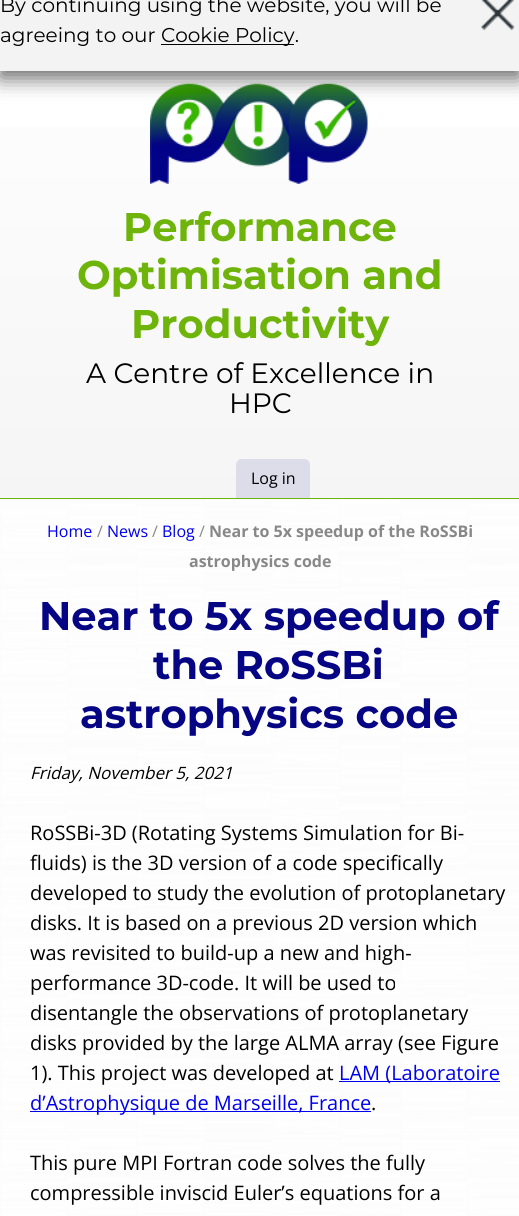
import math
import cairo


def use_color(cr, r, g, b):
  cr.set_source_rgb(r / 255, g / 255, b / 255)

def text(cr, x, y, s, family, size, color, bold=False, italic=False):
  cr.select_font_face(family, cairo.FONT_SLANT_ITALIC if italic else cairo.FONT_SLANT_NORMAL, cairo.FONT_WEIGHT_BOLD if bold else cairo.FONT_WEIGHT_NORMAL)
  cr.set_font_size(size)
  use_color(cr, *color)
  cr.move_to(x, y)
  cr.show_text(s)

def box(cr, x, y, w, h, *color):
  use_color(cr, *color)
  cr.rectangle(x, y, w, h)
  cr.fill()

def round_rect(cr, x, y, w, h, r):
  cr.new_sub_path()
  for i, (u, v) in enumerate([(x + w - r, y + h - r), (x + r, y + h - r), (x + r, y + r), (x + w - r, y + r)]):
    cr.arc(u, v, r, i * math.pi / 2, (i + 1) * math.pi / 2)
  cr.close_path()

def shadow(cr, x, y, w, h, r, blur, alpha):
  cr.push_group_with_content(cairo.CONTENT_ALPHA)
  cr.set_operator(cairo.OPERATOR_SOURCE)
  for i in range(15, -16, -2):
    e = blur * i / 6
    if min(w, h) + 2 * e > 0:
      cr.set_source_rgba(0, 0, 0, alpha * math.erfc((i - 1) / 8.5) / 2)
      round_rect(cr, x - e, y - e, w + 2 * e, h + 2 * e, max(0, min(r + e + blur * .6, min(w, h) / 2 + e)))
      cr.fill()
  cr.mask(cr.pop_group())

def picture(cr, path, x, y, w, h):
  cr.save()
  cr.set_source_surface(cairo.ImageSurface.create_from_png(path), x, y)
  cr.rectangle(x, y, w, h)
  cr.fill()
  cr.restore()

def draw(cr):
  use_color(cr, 255, 255, 255)
  cr.paint()
  picture(cr, "img_01.png", 0, 499, 519, 717)
  gradient = cairo.LinearGradient(260, 3.7, 260, 498)
  gradient.add_color_stop_rgba(0, 1, 1, 1, 1)
  gradient.add_color_stop_rgba(1, 0.961, 0.961, 0.961, 1)
  cr.set_source(gradient)
  cr.rectangle(0, 127, 519, 371)
  cr.fill()
  picture(cr, "img_03.png", 150, 83, 218, 101)
  use_color(cr, 50, 50, 50)
  shadow(cr, 0, -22, 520, 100, 0, 10.5, 0.75)
  box(cr, 0, 0, 519, 71, 243, 243, 243)
  box(cr, 161, 44, 133, 1, 0, 0, 0)
  picture(cr, "img_02.png", 481, 0, 34, 31)
  box(cr, 0, 498, 519, 1, 111, 180, 11)
  use_color(cr, 221, 221, 234)
  cr.new_path()
  cr.move_to(242, 459)
  cr.line_to(304, 459)
  cr.curve_to(307.5, 459, 310, 461.5, 310, 465)
  cr.line_to(310, 498)
  cr.line_to(236, 498)
  cr.line_to(236, 465)
  cr.curve_to(236, 461.5, 238.5, 459, 242, 459)
  cr.close_path()
  cr.fill()
  box(cr, 339, 1081, 161, 1, 0, 0, 238)
  box(cr, 30, 1111, 341, 1, 0, 0, 238)
  text(cr, 0, 12, "By continuing using the website, you will be", "Montserrat", 20, (0, 0, 0))
  text(cr, 0, 42, "agreeing to our", "Montserrat", 20, (0, 0, 0))
  text(cr, 161, 42, "Cookie Policy.", "Montserrat", 20, (0, 0, 0))
  text(cr, 123, 241, "Performance", "Montserrat", 40, (111, 180, 11), bold=True)
  text(cr, 77, 289, "Optimisation and", "Montserrat", 40, (111, 180, 11), bold=True)
  text(cr, 131, 338, "Productivity", "Montserrat", 40, (111, 180, 11), bold=True)
  text(cr, 86, 383, "A Centre of Excellence in", "Montserrat", 28, (0, 0, 0))
  text(cr, 229, 413, "HPC", "Montserrat", 28, (0, 0, 0))
  text(cr, 251, 484, "Log in", "Open Sans", 16, (0, 0, 0))
  text(cr, 47, 537, "Home", "Open Sans", 16, (0, 0, 238))
  text(cr, 97, 537, "/", "Open Sans", 16, (136, 136, 136))
  text(cr, 107, 537, "News", "Open Sans", 16, (0, 0, 238))
  text(cr, 152, 537, "/", "Open Sans", 16, (136, 136, 136))
  text(cr, 162, 537, "Blog", "Open Sans", 16, (0, 0, 238))
  text(cr, 199, 537, "/", "Open Sans", 16, (136, 136, 136))
  text(cr, 209, 537, "Near to 5x speedup of the RoSSBi", "Open Sans", 16, (136, 136, 136), bold=True)
  text(cr, 189, 567, "astrophysics code", "Open Sans", 16, (136, 136, 136), bold=True)
  text(cr, 39, 630, "Near to 5x speedup of", "Montserrat", 40, (6, 6, 132), bold=True)
  text(cr, 153, 679, "the RoSSBi", "Montserrat", 40, (6, 6, 132), bold=True)
  text(cr, 80, 728, "astrophysics code", "Montserrat", 40, (6, 6, 132), bold=True)
  text(cr, 30, 779, "Friday, November 5, 2021", "Open Sans", 17, (0, 0, 0), italic=True)
  text(cr, 30, 840, "RoSSBi-3D (Rotating Systems Simulation for Bi-", "Open Sans", 20, (0, 0, 0))
  text(cr, 30, 870, "fluids) is the 3D version of a code specifically", "Open Sans", 20, (0, 0, 0))
  text(cr, 30, 900, "developed to study the evolution of protoplanetary", "Open Sans", 20, (0, 0, 0))
  text(cr, 30, 930, "disks. It is based on a previous 2D version which", "Open Sans", 20, (0, 0, 0))
  text(cr, 30, 960, "was revisited to build-up a new and high-", "Open Sans", 20, (0, 0, 0))
  text(cr, 30, 990, "performance 3D-code. It will be used to", "Open Sans", 20, (0, 0, 0))
  text(cr, 30, 1020, "disentangle the observations of protoplanetary", "Open Sans", 20, (0, 0, 0))
  text(cr, 30, 1050, "disks provided by the large ALMA array (see Figure", "Open Sans", 20, (0, 0, 0))
  text(cr, 30, 1080, "1). This project was developed at", "Open Sans", 20, (0, 0, 0))
  text(cr, 339, 1080, "LAM (Laboratoire", "Open Sans", 20, (0, 0, 238))
  text(cr, 30, 1110, "d’Astrophysique de Marseille, France", "Open Sans", 20, (0, 0, 238))
  text(cr, 371, 1110, ".", "Open Sans", 20, (0, 0, 0))
  text(cr, 30, 1170, "This pure MPI Fortran code solves the fully", "Open Sans", 20, (0, 0, 0))
  text(cr, 30, 1200, "compressible inviscid Euler’s equations for a", "Open Sans", 20, (0, 0, 0))


surface = cairo.ImageSurface(cairo.FORMAT_RGB24, 519, 1216)
cr = cairo.Context(surface)
options = cairo.FontOptions()
options.set_hint_metrics(cairo.HINT_METRICS_OFF)
options.set_hint_style(cairo.HINT_STYLE_NONE)
cr.set_font_options(options)
cr.set_miter_limit(4)
draw(cr)
surface.write_to_png("out.png")
